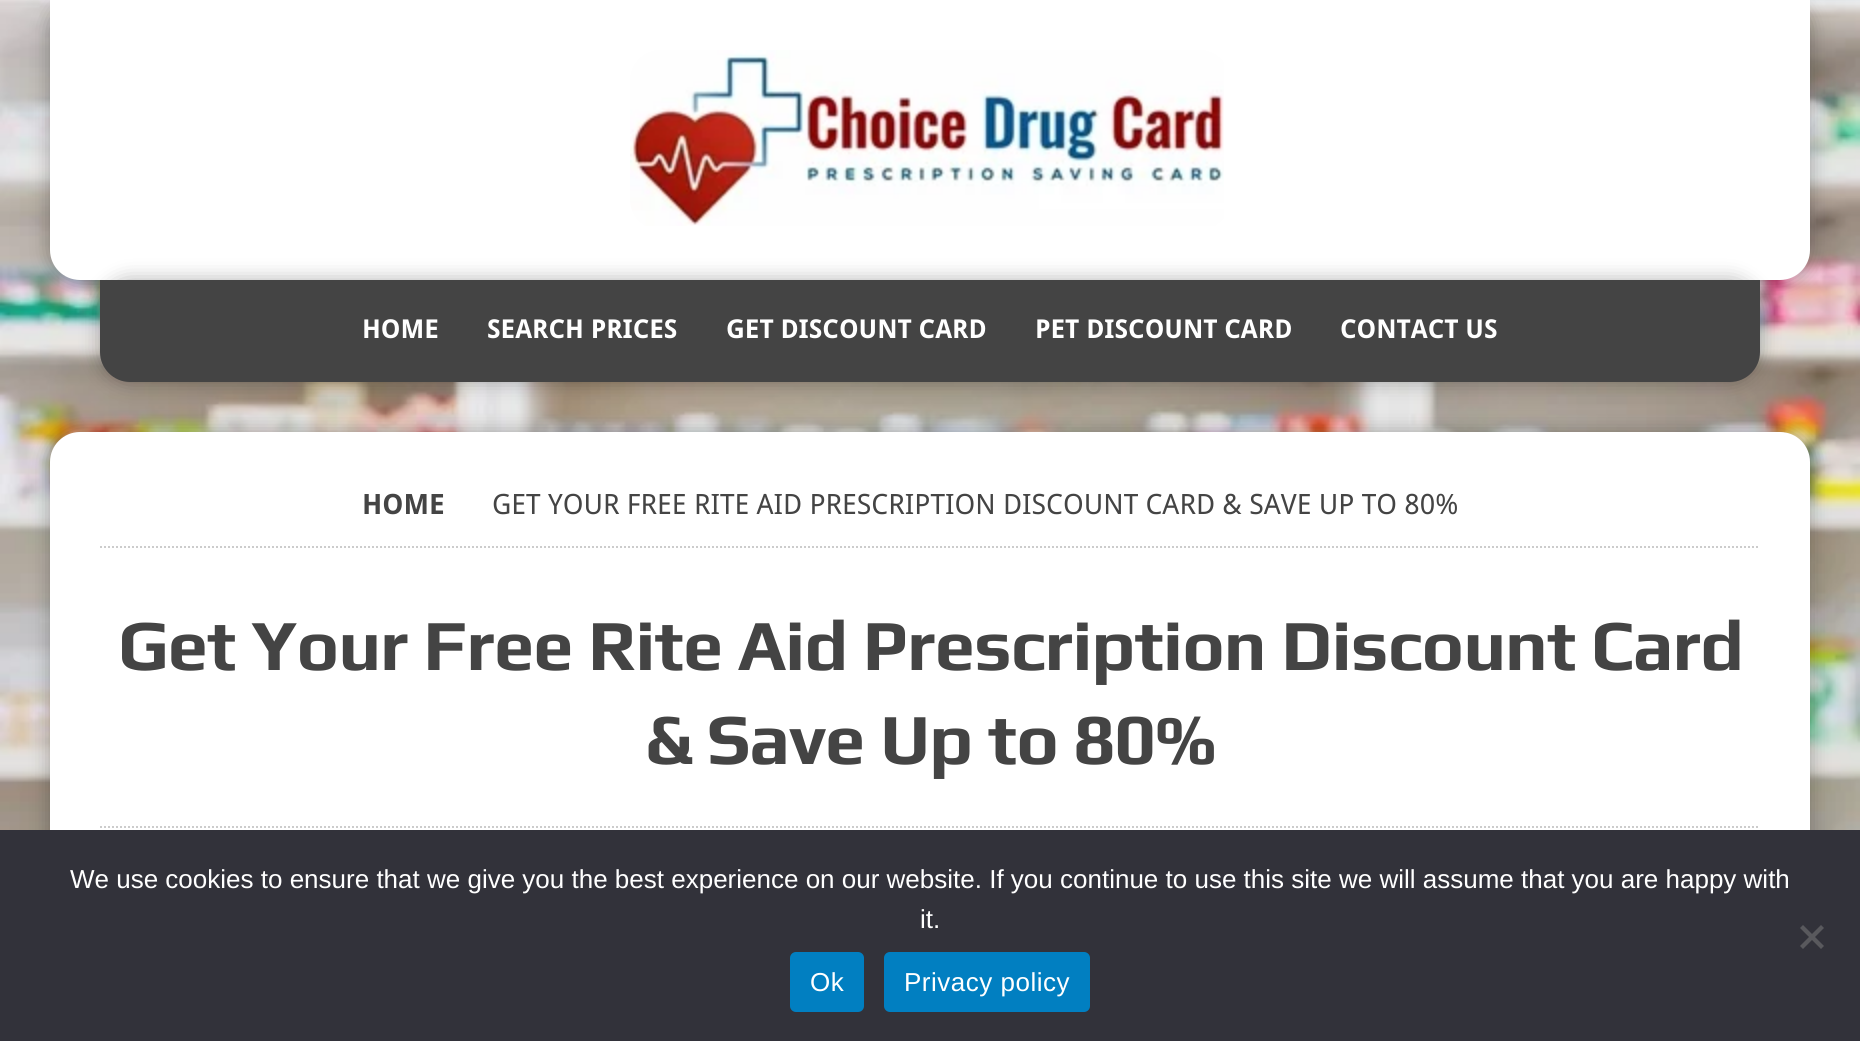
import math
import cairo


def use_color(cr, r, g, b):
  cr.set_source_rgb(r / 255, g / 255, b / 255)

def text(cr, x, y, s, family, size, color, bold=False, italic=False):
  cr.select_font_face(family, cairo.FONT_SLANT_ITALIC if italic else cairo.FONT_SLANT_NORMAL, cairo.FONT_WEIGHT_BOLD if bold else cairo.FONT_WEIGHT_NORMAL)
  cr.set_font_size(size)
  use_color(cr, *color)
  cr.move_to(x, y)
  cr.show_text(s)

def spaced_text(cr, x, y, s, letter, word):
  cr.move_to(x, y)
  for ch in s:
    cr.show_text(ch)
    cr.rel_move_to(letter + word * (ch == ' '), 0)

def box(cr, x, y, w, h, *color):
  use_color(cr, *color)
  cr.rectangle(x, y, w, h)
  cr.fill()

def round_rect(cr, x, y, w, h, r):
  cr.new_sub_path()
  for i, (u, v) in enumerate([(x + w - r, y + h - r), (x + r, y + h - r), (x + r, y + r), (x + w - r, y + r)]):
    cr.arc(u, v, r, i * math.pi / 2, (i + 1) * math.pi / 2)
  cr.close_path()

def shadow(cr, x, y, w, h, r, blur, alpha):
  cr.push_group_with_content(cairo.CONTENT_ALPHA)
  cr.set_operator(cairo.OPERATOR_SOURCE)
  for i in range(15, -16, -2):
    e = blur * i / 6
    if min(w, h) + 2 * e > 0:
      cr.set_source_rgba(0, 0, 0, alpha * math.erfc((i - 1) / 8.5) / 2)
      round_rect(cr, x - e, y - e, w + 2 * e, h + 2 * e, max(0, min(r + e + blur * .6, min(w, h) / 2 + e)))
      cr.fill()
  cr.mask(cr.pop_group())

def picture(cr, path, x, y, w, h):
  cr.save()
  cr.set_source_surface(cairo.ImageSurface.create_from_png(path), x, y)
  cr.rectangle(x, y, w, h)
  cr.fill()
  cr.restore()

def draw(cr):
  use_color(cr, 255, 255, 255)
  cr.paint()
  picture(cr, "img_01.png", 0, 0, 1860, 830)
  use_color(cr, 0, 0, 0)
  shadow(cr, 50, 0, 1760, 280, 30, 10, 0.3)
  use_color(cr, 255, 255, 255)
  cr.new_path()
  cr.move_to(50, 0)
  cr.line_to(1810, 0)
  cr.line_to(1810, 250)
  cr.curve_to(1810, 266.5, 1796.5, 280, 1780, 280)
  cr.line_to(80, 280)
  cr.curve_to(63.5, 280, 50, 266.5, 50, 250)
  cr.close_path()
  cr.fill()
  picture(cr, "img_02.png", 630, 50, 594, 176)
  use_color(cr, 0, 0, 0)
  shadow(cr, 100, 280, 1660, 102, 30, 10, 0.3)
  use_color(cr, 68, 68, 68)
  cr.new_path()
  cr.move_to(100, 280)
  cr.line_to(1760, 280)
  cr.line_to(1760, 352)
  cr.curve_to(1760, 368.5, 1746.5, 382, 1730, 382)
  cr.line_to(130, 382)
  cr.curve_to(113.5, 382, 100, 368.5, 100, 352)
  cr.close_path()
  cr.fill()
  use_color(cr, 0, 0, 0)
  shadow(cr, 50, 432, 1760, 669, 30, 10, 0.3)
  use_color(cr, 255, 255, 255)
  round_rect(cr, 50, 432, 1760, 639, 30)
  cr.fill()
  cr.new_path()
  cr.move_to(100, 547)
  cr.line_to(1760, 547)
  use_color(cr, 204, 204, 204)
  cr.set_dash([2, 2])
  cr.stroke()
  cr.new_path()
  cr.move_to(100, 827)
  cr.line_to(1760, 827)
  cr.stroke()
  box(cr, 0, 830, 1860, 211, 50, 50, 58)
  use_color(cr, 89, 89, 93)
  cr.new_path()
  cr.move_to(1821, 925)
  cr.line_to(1824, 928)
  cr.line_to(1803, 949)
  cr.line_to(1800, 946)
  cr.close_path()
  cr.fill()
  cr.new_path()
  cr.move_to(1800, 928)
  cr.line_to(1803, 925)
  cr.line_to(1824, 946)
  cr.line_to(1821, 949)
  cr.close_path()
  cr.fill()
  use_color(cr, 1, 127, 193)
  round_rect(cr, 790, 952, 74, 60, 6)
  cr.fill()
  round_rect(cr, 884, 952, 206, 60, 6)
  cr.fill()
  text(cr, 362, 338, "HOME", "Droid Sans", 26, (255, 255, 255), bold=True)
  text(cr, 487, 338, "SEARCH PRICES", "Droid Sans", 26, (255, 255, 255), bold=True)
  text(cr, 726, 338, "GET DISCOUNT CARD", "Droid Sans", 26, (255, 255, 255), bold=True)
  text(cr, 1035, 338, "PET DISCOUNT CARD", "Droid Sans", 26, (255, 255, 255), bold=True)
  text(cr, 1340, 338, "CONTACT US", "Droid Sans", 26, (255, 255, 255), bold=True)
  text(cr, 362, 514, "HOME", "Droid Sans", 28, (68, 68, 68), bold=True)
  text(cr, 492, 514, "GET YOUR FREE RITE AID PRESCRIPTION DISCOUNT CARD & SAVE UP TO 80%", "Droid Sans", 28, (68, 68, 68))
  cr.select_font_face("Play", cairo.FONT_SLANT_NORMAL, cairo.FONT_WEIGHT_BOLD)
  cr.set_font_size(72)
  spaced_text(cr, 118, 670, "Get Your Free Rite Aid Prescription Discount Card", -0.95, 0)
  spaced_text(cr, 645, 764, "& Save Up to 80%", -0.95, 0)
  text(cr, 70, 888, "We use cookies to ensure that we give you the best experience on our website. If you continue to use this site we will assume that you are happy with", "Liberation Sans", 26, (255, 255, 255))
  text(cr, 920, 928, "it.", "Liberation Sans", 26, (255, 255, 255))
  spaced_text(cr, 810, 991, "Ok", 0.5, 0)
  spaced_text(cr, 904, 991, "Privacy policy", 0.5, 0)


surface = cairo.ImageSurface(cairo.FORMAT_RGB24, 1860, 1041)
cr = cairo.Context(surface)
options = cairo.FontOptions()
options.set_hint_metrics(cairo.HINT_METRICS_OFF)
options.set_hint_style(cairo.HINT_STYLE_NONE)
cr.set_font_options(options)
cr.set_miter_limit(4)
draw(cr)
surface.write_to_png("out.png")
